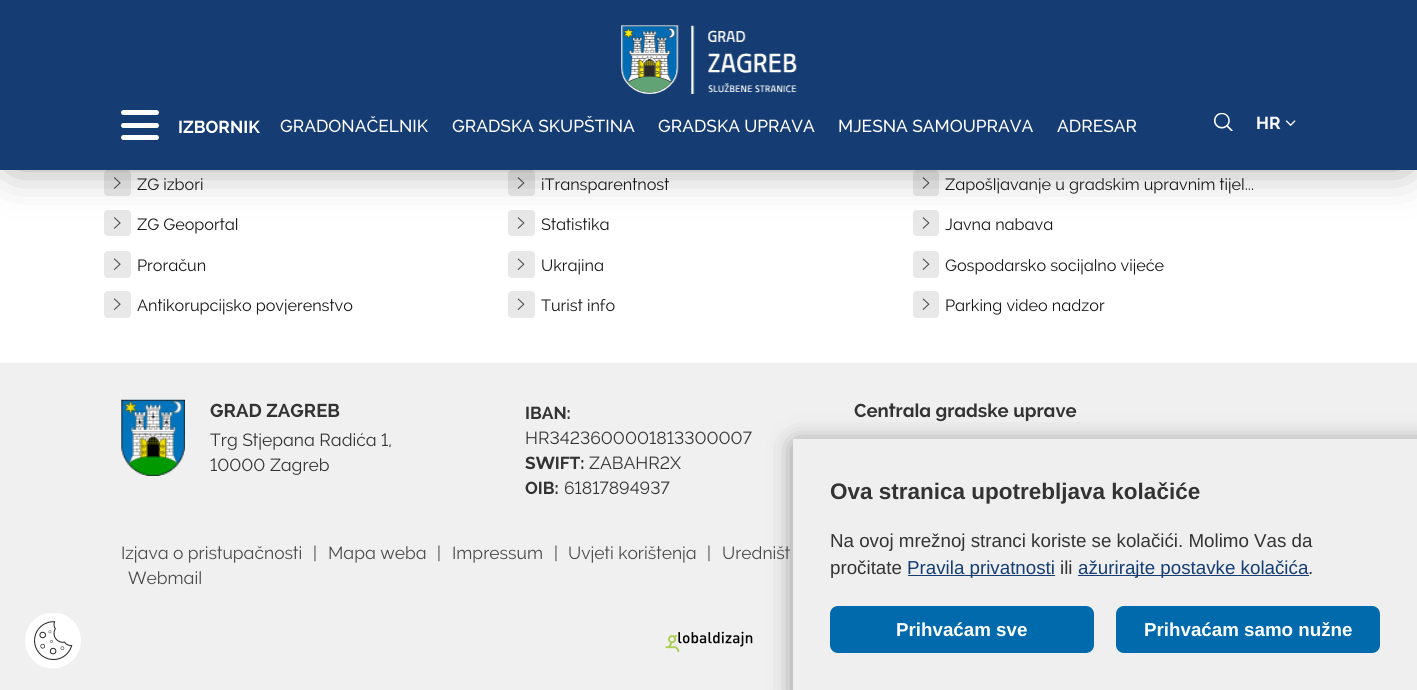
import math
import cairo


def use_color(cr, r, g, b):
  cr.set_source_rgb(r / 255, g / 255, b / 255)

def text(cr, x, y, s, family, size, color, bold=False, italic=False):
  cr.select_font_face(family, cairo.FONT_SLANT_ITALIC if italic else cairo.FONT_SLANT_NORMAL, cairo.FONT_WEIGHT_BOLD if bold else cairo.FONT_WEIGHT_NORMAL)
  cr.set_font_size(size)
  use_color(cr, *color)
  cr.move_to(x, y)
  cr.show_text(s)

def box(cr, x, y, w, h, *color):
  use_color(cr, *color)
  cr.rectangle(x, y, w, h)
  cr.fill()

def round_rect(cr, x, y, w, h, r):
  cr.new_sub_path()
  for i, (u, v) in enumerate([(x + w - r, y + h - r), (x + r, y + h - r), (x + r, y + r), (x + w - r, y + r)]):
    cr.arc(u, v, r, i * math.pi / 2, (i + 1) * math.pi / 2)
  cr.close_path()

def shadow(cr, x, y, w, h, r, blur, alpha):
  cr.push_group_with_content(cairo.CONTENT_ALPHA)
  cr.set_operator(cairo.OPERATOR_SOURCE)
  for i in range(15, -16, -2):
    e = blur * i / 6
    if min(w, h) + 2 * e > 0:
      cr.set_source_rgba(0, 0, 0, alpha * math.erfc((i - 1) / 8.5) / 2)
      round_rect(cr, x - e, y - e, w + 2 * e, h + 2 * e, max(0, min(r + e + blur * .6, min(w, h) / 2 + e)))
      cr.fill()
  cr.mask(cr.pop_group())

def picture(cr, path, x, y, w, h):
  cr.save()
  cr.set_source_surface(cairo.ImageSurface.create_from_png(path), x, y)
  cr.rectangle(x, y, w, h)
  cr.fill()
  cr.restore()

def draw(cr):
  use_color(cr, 255, 255, 255)
  cr.paint()
  use_color(cr, 232, 232, 232)
  round_rect(cr, 104, 170, 27, 26, 4)
  cr.fill()
  picture(cr, "img_04.png", 113, 177, 8, 12)
  round_rect(cr, 104, 210, 27, 26, 4)
  cr.fill()
  picture(cr, "img_04.png", 113, 217, 8, 12)
  round_rect(cr, 508, 170, 27, 26, 4)
  cr.fill()
  picture(cr, "img_06.png", 517, 177, 8, 12)
  round_rect(cr, 508, 210, 27, 26, 4)
  cr.fill()
  picture(cr, "img_06.png", 517, 217, 8, 12)
  round_rect(cr, 913, 170, 26, 26, 4)
  cr.fill()
  picture(cr, "img_06.png", 922, 177, 8, 12)
  round_rect(cr, 913, 210, 26, 26, 4)
  cr.fill()
  picture(cr, "img_06.png", 922, 217, 8, 12)
  use_color(cr, 0, 0, 0)
  shadow(cr, 13, 15, 1392, 145, 0, 24.5, 0.5)
  box(cr, 0, 0, 1417, 170, 22, 61, 115)
  picture(cr, "img_01.png", 621, 25, 176, 69)
  use_color(cr, 255, 255, 255)
  round_rect(cr, 121, 135, 38, 5, 2.5)
  cr.fill()
  round_rect(cr, 121, 110, 38, 5, 2.5)
  cr.fill()
  round_rect(cr, 121, 123, 38, 5, 2.5)
  cr.fill()
  picture(cr, "img_02.png", 1214, 113, 19, 18)
  picture(cr, "img_03.png", 1285, 120, 11, 6)
  use_color(cr, 232, 232, 232)
  round_rect(cr, 104, 251, 27, 27, 4)
  cr.fill()
  picture(cr, "img_05.png", 113, 258, 8, 12)
  round_rect(cr, 104, 291, 27, 27, 4)
  cr.fill()
  picture(cr, "img_05.png", 113, 298, 8, 12)
  round_rect(cr, 508, 251, 27, 27, 4)
  cr.fill()
  picture(cr, "img_07.png", 517, 258, 8, 12)
  round_rect(cr, 508, 291, 27, 27, 4)
  cr.fill()
  picture(cr, "img_07.png", 517, 298, 8, 12)
  round_rect(cr, 913, 251, 26, 27, 4)
  cr.fill()
  picture(cr, "img_07.png", 922, 258, 8, 12)
  round_rect(cr, 913, 291, 26, 27, 4)
  cr.fill()
  picture(cr, "img_07.png", 922, 298, 8, 12)
  box(cr, 0, 363, 1417, 327, 240, 240, 240)
  picture(cr, "img_08.png", 121, 399, 64, 77)
  picture(cr, "img_09.png", 665, 631, 88, 22)
  picture(cr, "img_10.png", 25, 613, 56, 56)
  use_color(cr, 0, 0, 0)
  shadow(cr, 796, 445, 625, 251, 0, 12.5, 0.5)
  box(cr, 793, 439, 624, 251, 239, 239, 239)
  box(cr, 908, 575, 147, 1, 22, 61, 115)
  box(cr, 1078, 575, 231, 1, 22, 61, 115)
  use_color(cr, 0, 106, 173)
  round_rect(cr, 830, 606, 264, 47, 8)
  cr.fill()
  round_rect(cr, 1116, 606, 264, 47, 8)
  cr.fill()
  text(cr, 178, 133, "IZBORNIK", "Raleway", 17.5, (255, 255, 255), bold=True)
  text(cr, 280, 132, "GRADONAČELNIK", "Raleway Medium", 17.5, (255, 255, 255))
  text(cr, 452, 132, "GRADSKA SKUPŠTINA", "Raleway Medium", 17.5, (255, 255, 255))
  text(cr, 658, 132, "GRADSKA UPRAVA", "Raleway Medium", 17.5, (255, 255, 255))
  text(cr, 838, 132, "MJESNA SAMOUPRAVA", "Raleway Medium", 17.5, (255, 255, 255))
  text(cr, 1057, 132, "ADRESAR", "Raleway Medium", 17.5, (255, 255, 255))
  text(cr, 1256, 129, "HR", "Raleway", 17.5, (255, 255, 255), bold=True)
  text(cr, 137, 190, "ZG izbori", "Raleway", 16.25, (22, 22, 22))
  text(cr, 137, 230, "ZG Geoportal", "Raleway", 16.25, (22, 22, 22))
  text(cr, 137, 271, "Proračun", "Raleway", 16.25, (22, 22, 22))
  text(cr, 137, 311, "Antikorupcijsko povjerenstvo", "Raleway", 16.25, (22, 22, 22))
  text(cr, 541, 190, "iTransparentnost", "Raleway", 16.25, (22, 22, 22))
  text(cr, 541, 230, "Statistika", "Raleway", 16.25, (22, 22, 22))
  text(cr, 541, 271, "Ukrajina", "Raleway", 16.25, (22, 22, 22))
  text(cr, 541, 311, "Turist info", "Raleway", 16.25, (22, 22, 22))
  text(cr, 945, 190, "Zapošljavanje u gradskim upravnim tijel...", "Raleway", 16.25, (22, 22, 22))
  text(cr, 945, 230, "Javna nabava", "Raleway", 16.25, (22, 22, 22))
  text(cr, 945, 271, "Gospodarsko socijalno vijeće", "Raleway", 16.25, (22, 22, 22))
  text(cr, 945, 311, "Parking video nadzor", "Raleway", 16.25, (22, 22, 22))
  text(cr, 210, 417, "GRAD ZAGREB", "Raleway", 18.75, (51, 51, 51), bold=True)
  text(cr, 210, 446, "Trg Stjepana Radića 1,", "Raleway", 17.5, (51, 51, 51))
  text(cr, 210, 471, "10000 Zagreb", "Raleway", 17.5, (51, 51, 51))
  text(cr, 525, 419, "IBAN:", "Raleway", 17.5, (51, 51, 51), bold=True)
  text(cr, 525, 444, "HR3423600001813300007", "Raleway", 17.5, (51, 51, 51))
  text(cr, 525, 469, "SWIFT:", "Raleway", 17.5, (51, 51, 51), bold=True)
  text(cr, 589, 469, "ZABAHR2X", "Raleway", 17.5, (51, 51, 51))
  text(cr, 525, 494, "OIB:", "Raleway", 17.5, (51, 51, 51), bold=True)
  text(cr, 564, 494, "61817894937", "Raleway", 17.5, (51, 51, 51))
  text(cr, 854, 417, "Centrala gradske uprave", "Raleway", 18.75, (51, 51, 51), bold=True)
  text(cr, 121, 559, "Izjava o pristupačnosti", "Raleway", 17.5, (74, 74, 74))
  text(cr, 313, 559, "|", "Raleway", 17.5, (74, 74, 74))
  text(cr, 328, 559, "Mapa weba", "Raleway", 17.5, (74, 74, 74))
  text(cr, 437, 559, "|", "Raleway", 17.5, (74, 74, 74))
  text(cr, 452, 559, "Impressum", "Raleway", 17.5, (74, 74, 74))
  text(cr, 554, 559, "|", "Raleway", 17.5, (74, 74, 74))
  text(cr, 568, 559, "Uvjeti korištenja", "Raleway", 17.5, (74, 74, 74))
  text(cr, 707, 559, "|", "Raleway", 17.5, (74, 74, 74))
  text(cr, 722, 559, "Uredništ", "Raleway", 17.5, (74, 74, 74))
  text(cr, 128, 584, "Webmail", "Raleway", 17.5, (74, 74, 74))
  text(cr, 830, 499, "Ova stranica upotrebljava kolačiće", "Liberation Sans", 22.5, (51, 51, 51), bold=True)
  text(cr, 830, 547, "Na ovoj mrežnoj stranci koriste se kolačići. Molimo Vas da", "Liberation Sans", 18.75, (51, 51, 51))
  text(cr, 830, 574, "pročitate", "Liberation Sans", 18.75, (51, 51, 51))
  text(cr, 907, 574, "Pravila privatnosti", "Liberation Sans", 18.75, (22, 61, 115))
  text(cr, 1060, 574, "ili", "Liberation Sans", 18.75, (51, 51, 51))
  text(cr, 1078, 574, "ažurirajte postavke kolačića", "Liberation Sans", 18.75, (22, 61, 115))
  text(cr, 1308, 574, ".", "Liberation Sans", 18.75, (51, 51, 51))
  text(cr, 896, 636, "Prihvaćam sve", "Liberation Sans", 18.75, (255, 255, 255), bold=True)
  text(cr, 1144, 636, "Prihvaćam samo nužne", "Liberation Sans", 18.75, (255, 255, 255), bold=True)


surface = cairo.ImageSurface(cairo.FORMAT_RGB24, 1417, 690)
cr = cairo.Context(surface)
options = cairo.FontOptions()
options.set_hint_metrics(cairo.HINT_METRICS_OFF)
options.set_hint_style(cairo.HINT_STYLE_NONE)
cr.set_font_options(options)
cr.set_miter_limit(4)
draw(cr)
surface.write_to_png("out.png")
